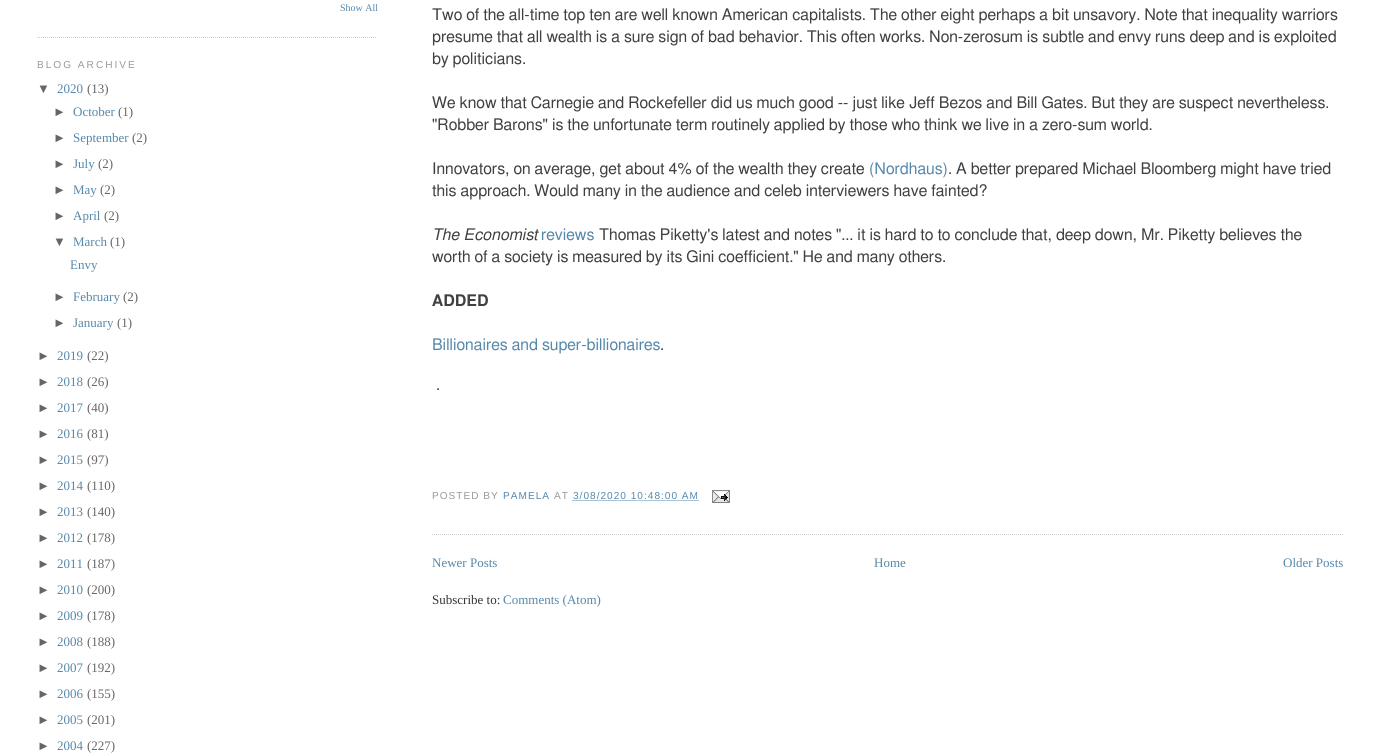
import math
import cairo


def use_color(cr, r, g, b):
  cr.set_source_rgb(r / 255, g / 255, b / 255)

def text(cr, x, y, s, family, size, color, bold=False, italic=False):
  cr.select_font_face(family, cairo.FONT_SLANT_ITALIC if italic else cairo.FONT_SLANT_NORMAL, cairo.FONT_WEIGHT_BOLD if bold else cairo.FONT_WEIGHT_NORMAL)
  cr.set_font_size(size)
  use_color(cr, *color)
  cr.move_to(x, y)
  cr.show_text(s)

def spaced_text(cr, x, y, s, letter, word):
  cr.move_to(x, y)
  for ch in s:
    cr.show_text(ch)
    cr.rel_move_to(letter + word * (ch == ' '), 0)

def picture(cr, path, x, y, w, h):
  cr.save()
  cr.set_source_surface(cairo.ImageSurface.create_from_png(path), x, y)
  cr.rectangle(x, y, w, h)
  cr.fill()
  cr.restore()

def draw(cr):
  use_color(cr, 255, 255, 255)
  cr.paint()
  cr.new_path()
  cr.move_to(37, 37.5)
  cr.line_to(377, 37.5)
  use_color(cr, 204, 204, 204)
  cr.set_line_width(1)
  cr.set_dash([1, 1])
  cr.stroke()
  cr.new_path()
  cr.move_to(432, 534.5)
  cr.line_to(1344, 534.5)
  cr.stroke()
  cr.new_path()
  cr.move_to(572.5, 500.5)
  cr.line_to(699, 500.5)
  use_color(cr, 85, 136, 170)
  cr.stroke()
  picture(cr, "img_01.png", 712, 490, 18, 13)
  text(cr, 340, 11, "Show All", "Liberation Serif", 10, (85, 136, 170))
  cr.select_font_face("Liberation Sans")
  cr.set_font_size(10.1)
  use_color(cr, 153, 153, 153)
  spaced_text(cr, 37, 68, "BLOG ARCHIVE", 2, 0)
  text(cr, 37, 93, "▼", "Liberation Sans", 13, (102, 102, 102))
  text(cr, 57, 93, "2020", "Liberation Serif", 13, (85, 136, 170))
  text(cr, 87, 93, "(13)", "Liberation Serif", 13, (102, 102, 102))
  text(cr, 53, 116, "►", "Liberation Sans", 13, (102, 102, 102))
  text(cr, 73, 116, "October", "Liberation Serif", 13, (85, 136, 170))
  text(cr, 118, 116, "(1)", "Liberation Serif", 13, (102, 102, 102))
  text(cr, 53, 142, "►", "Liberation Sans", 13, (102, 102, 102))
  text(cr, 73, 142, "September", "Liberation Serif", 13, (85, 136, 170))
  text(cr, 132, 142, "(2)", "Liberation Serif", 13, (102, 102, 102))
  text(cr, 53, 168, "►", "Liberation Sans", 13, (102, 102, 102))
  text(cr, 73, 168, "July", "Liberation Serif", 13, (85, 136, 170))
  text(cr, 98, 168, "(2)", "Liberation Serif", 13, (102, 102, 102))
  text(cr, 53, 194, "►", "Liberation Sans", 13, (102, 102, 102))
  text(cr, 73, 194, "May", "Liberation Serif", 13, (85, 136, 170))
  text(cr, 100, 194, "(2)", "Liberation Serif", 13, (102, 102, 102))
  text(cr, 53, 220, "►", "Liberation Sans", 13, (102, 102, 102))
  text(cr, 73, 220, "April", "Liberation Serif", 13, (85, 136, 170))
  text(cr, 104, 220, "(2)", "Liberation Serif", 13, (102, 102, 102))
  text(cr, 53, 246, "▼", "Liberation Sans", 13, (102, 102, 102))
  text(cr, 73, 246, "March", "Liberation Serif", 13, (85, 136, 170))
  text(cr, 110, 246, "(1)", "Liberation Serif", 13, (102, 102, 102))
  text(cr, 70, 269, "Envy", "Liberation Serif", 13, (85, 136, 170))
  text(cr, 53, 301, "►", "Liberation Sans", 13, (102, 102, 102))
  text(cr, 73, 301, "February", "Liberation Serif", 13, (85, 136, 170))
  text(cr, 123, 301, "(2)", "Liberation Serif", 13, (102, 102, 102))
  text(cr, 53, 327, "►", "Liberation Sans", 13, (102, 102, 102))
  text(cr, 73, 327, "January", "Liberation Serif", 13, (85, 136, 170))
  text(cr, 117, 327, "(1)", "Liberation Serif", 13, (102, 102, 102))
  text(cr, 37, 360, "►", "Liberation Sans", 13, (102, 102, 102))
  text(cr, 57, 360, "2019", "Liberation Serif", 13, (85, 136, 170))
  text(cr, 87, 360, "(22)", "Liberation Serif", 13, (102, 102, 102))
  text(cr, 37, 386, "►", "Liberation Sans", 13, (102, 102, 102))
  text(cr, 57, 386, "2018", "Liberation Serif", 13, (85, 136, 170))
  text(cr, 87, 386, "(26)", "Liberation Serif", 13, (102, 102, 102))
  text(cr, 37, 412, "►", "Liberation Sans", 13, (102, 102, 102))
  text(cr, 57, 412, "2017", "Liberation Serif", 13, (85, 136, 170))
  text(cr, 87, 412, "(40)", "Liberation Serif", 13, (102, 102, 102))
  text(cr, 37, 438, "►", "Liberation Sans", 13, (102, 102, 102))
  text(cr, 57, 438, "2016", "Liberation Serif", 13, (85, 136, 170))
  text(cr, 87, 438, "(81)", "Liberation Serif", 13, (102, 102, 102))
  text(cr, 37, 464, "►", "Liberation Sans", 13, (102, 102, 102))
  text(cr, 57, 464, "2015", "Liberation Serif", 13, (85, 136, 170))
  text(cr, 87, 464, "(97)", "Liberation Serif", 13, (102, 102, 102))
  text(cr, 37, 490, "►", "Liberation Sans", 13, (102, 102, 102))
  text(cr, 57, 490, "2014", "Liberation Serif", 13, (85, 136, 170))
  text(cr, 87, 490, "(110)", "Liberation Serif", 13, (102, 102, 102))
  text(cr, 37, 516, "►", "Liberation Sans", 13, (102, 102, 102))
  text(cr, 57, 516, "2013", "Liberation Serif", 13, (85, 136, 170))
  text(cr, 87, 516, "(140)", "Liberation Serif", 13, (102, 102, 102))
  text(cr, 37, 542, "►", "Liberation Sans", 13, (102, 102, 102))
  text(cr, 57, 542, "2012", "Liberation Serif", 13, (85, 136, 170))
  text(cr, 87, 542, "(178)", "Liberation Serif", 13, (102, 102, 102))
  text(cr, 37, 568, "►", "Liberation Sans", 13, (102, 102, 102))
  text(cr, 57, 568, "2011", "Liberation Serif", 13, (85, 136, 170))
  text(cr, 87, 568, "(187)", "Liberation Serif", 13, (102, 102, 102))
  text(cr, 37, 594, "►", "Liberation Sans", 13, (102, 102, 102))
  text(cr, 57, 594, "2010", "Liberation Serif", 13, (85, 136, 170))
  text(cr, 87, 594, "(200)", "Liberation Serif", 13, (102, 102, 102))
  text(cr, 37, 620, "►", "Liberation Sans", 13, (102, 102, 102))
  text(cr, 57, 620, "2009", "Liberation Serif", 13, (85, 136, 170))
  text(cr, 87, 620, "(178)", "Liberation Serif", 13, (102, 102, 102))
  text(cr, 37, 646, "►", "Liberation Sans", 13, (102, 102, 102))
  text(cr, 57, 646, "2008", "Liberation Serif", 13, (85, 136, 170))
  text(cr, 87, 646, "(188)", "Liberation Serif", 13, (102, 102, 102))
  text(cr, 37, 672, "►", "Liberation Sans", 13, (102, 102, 102))
  text(cr, 57, 672, "2007", "Liberation Serif", 13, (85, 136, 170))
  text(cr, 87, 672, "(192)", "Liberation Serif", 13, (102, 102, 102))
  text(cr, 37, 698, "►", "Liberation Sans", 13, (102, 102, 102))
  text(cr, 57, 698, "2006", "Liberation Serif", 13, (85, 136, 170))
  text(cr, 87, 698, "(155)", "Liberation Serif", 13, (102, 102, 102))
  text(cr, 37, 724, "►", "Liberation Sans", 13, (102, 102, 102))
  text(cr, 57, 724, "2005", "Liberation Serif", 13, (85, 136, 170))
  text(cr, 87, 724, "(201)", "Liberation Serif", 13, (102, 102, 102))
  text(cr, 37, 750, "►", "Liberation Sans", 13, (102, 102, 102))
  text(cr, 57, 750, "2004", "Liberation Serif", 13, (85, 136, 170))
  text(cr, 87, 750, "(227)", "Liberation Serif", 13, (102, 102, 102))
  text(cr, 432, 20, "Two of the all-time top ten are well known American capitalists. The other eight perhaps a bit unsavory. Note that inequality warriors", "FreeSans", 16, (64, 64, 64))
  text(cr, 432, 42, "presume that all wealth is a sure sign of bad behavior. This often works. Non-zerosum is subtle and envy runs deep and is exploited", "FreeSans", 16, (64, 64, 64))
  text(cr, 432, 64, "by politicians.", "FreeSans", 16, (64, 64, 64))
  text(cr, 432, 108, "We know that Carnegie and Rockefeller did us much good -- just like Jeff Bezos and Bill Gates. But they are suspect nevertheless.", "FreeSans", 16, (64, 64, 64))
  text(cr, 432, 130, "\"Robber Barons\" is the unfortunate term routinely applied by those who think we live in a zero-sum world.", "FreeSans", 16, (64, 64, 64))
  text(cr, 432, 174, "Innovators, on average, get about 4% of the wealth they create", "FreeSans", 16, (64, 64, 64))
  text(cr, 869, 174, "(Nordhaus)", "FreeSans", 16, (85, 136, 170))
  text(cr, 948, 174, ". A better prepared Michael Bloomberg might have tried", "FreeSans", 16, (64, 64, 64))
  text(cr, 432, 196, "this approach. Would many in the audience and celeb interviewers have fainted?", "FreeSans", 16, (64, 64, 64))
  text(cr, 432, 240, "The Economist", "FreeSans", 16, (64, 64, 64), italic=True)
  text(cr, 541, 240, "reviews", "FreeSans", 16, (85, 136, 170))
  text(cr, 599, 240, "Thomas Piketty's latest and notes \"... it is hard to to conclude that, deep down, Mr. Piketty believes the", "FreeSans", 16, (64, 64, 64))
  text(cr, 432, 262, "worth of a society is measured by its Gini coefficient.\" He and many others.", "FreeSans", 16, (64, 64, 64))
  text(cr, 432, 306, "ADDED", "FreeSans SemiBold", 16, (64, 64, 64))
  text(cr, 432, 350, "Billionaires and super-billionaires", "FreeSans", 16, (85, 136, 170))
  text(cr, 660, 350, ".", "FreeSans", 16, (64, 64, 64))
  text(cr, 436, 390, ".", "FreeSans", 16, (64, 64, 64))
  cr.select_font_face("Liberation Sans")
  cr.set_font_size(10.1)
  use_color(cr, 153, 153, 153)
  spaced_text(cr, 432, 499, "POSTED BY", 1, 0)
  use_color(cr, 85, 136, 170)
  spaced_text(cr, 503, 499, "PAMELA", 1, 0)
  use_color(cr, 153, 153, 153)
  spaced_text(cr, 554, 499, "AT", 1, 0)
  use_color(cr, 85, 136, 170)
  spaced_text(cr, 573, 499, "3/08/2020 10:48:00 AM", 1, 0)
  text(cr, 432, 567, "Newer Posts", "Liberation Serif", 13, (85, 136, 170))
  text(cr, 874, 567, "Home", "Liberation Serif", 13, (85, 136, 170))
  text(cr, 1283, 567, "Older Posts", "Liberation Serif", 13, (85, 136, 170))
  text(cr, 432, 604, "Subscribe to:", "Liberation Serif", 13, (51, 51, 51))
  text(cr, 503, 604, "Comments (Atom)", "Liberation Serif", 13, (85, 136, 170))


surface = cairo.ImageSurface(cairo.FORMAT_RGB24, 1381, 754)
cr = cairo.Context(surface)
options = cairo.FontOptions()
options.set_hint_metrics(cairo.HINT_METRICS_OFF)
options.set_hint_style(cairo.HINT_STYLE_NONE)
cr.set_font_options(options)
cr.set_miter_limit(4)
draw(cr)
surface.write_to_png("out.png")
